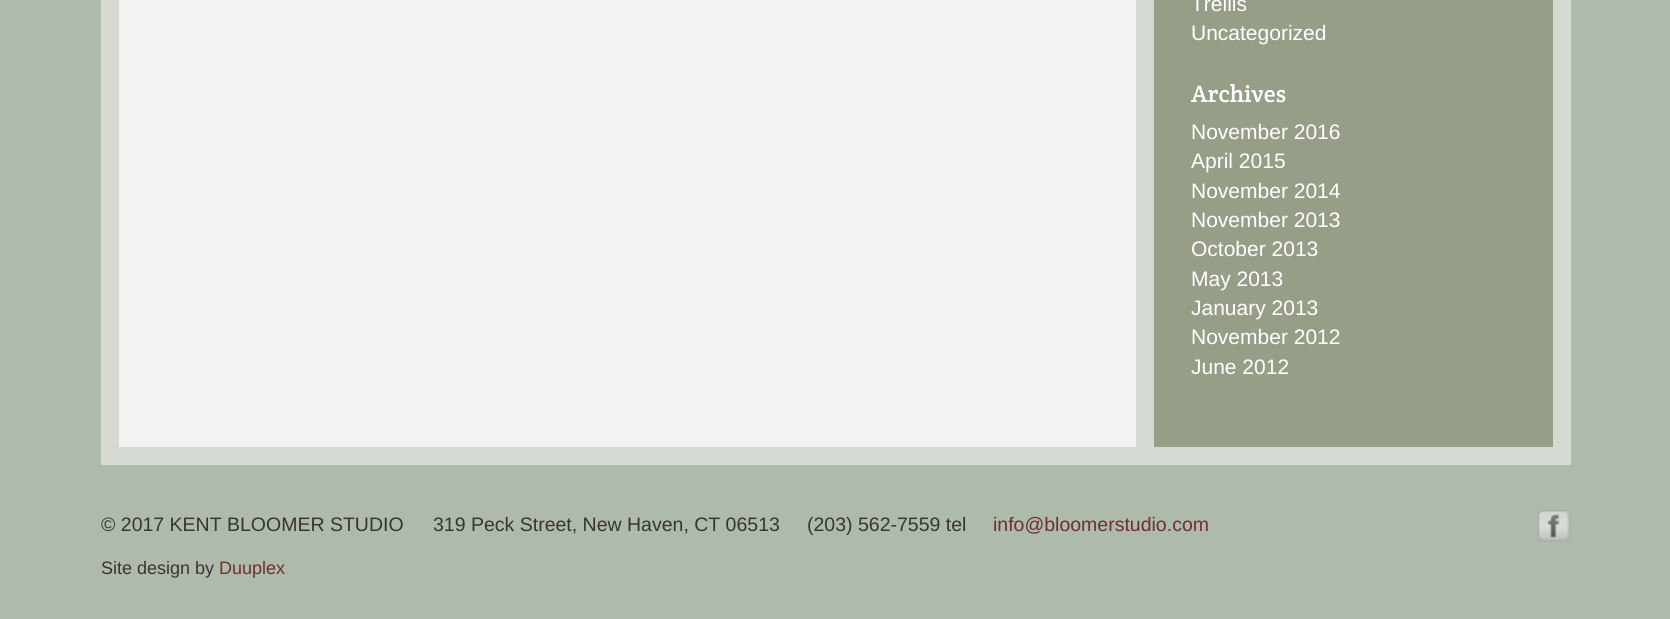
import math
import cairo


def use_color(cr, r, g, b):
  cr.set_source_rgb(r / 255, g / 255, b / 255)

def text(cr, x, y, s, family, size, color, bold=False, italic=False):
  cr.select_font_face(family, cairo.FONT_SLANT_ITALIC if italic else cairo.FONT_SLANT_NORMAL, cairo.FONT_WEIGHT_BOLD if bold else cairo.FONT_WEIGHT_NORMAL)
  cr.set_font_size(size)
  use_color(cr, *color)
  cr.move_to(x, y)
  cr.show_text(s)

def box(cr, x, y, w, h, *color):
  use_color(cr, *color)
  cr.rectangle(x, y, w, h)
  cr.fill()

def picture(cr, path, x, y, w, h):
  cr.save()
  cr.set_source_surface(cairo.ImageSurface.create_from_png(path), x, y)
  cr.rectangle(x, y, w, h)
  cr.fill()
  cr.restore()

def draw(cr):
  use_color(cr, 174, 186, 171)
  cr.paint()
  box(cr, 101, 0, 1470, 465, 212, 217, 210)
  box(cr, 119, 0, 1017, 447, 242, 242, 242)
  box(cr, 1154, 0, 399, 447, 151, 158, 135)
  picture(cr, "img_01.png", 1537, 510, 34, 32)
  text(cr, 1191, 11, "Trellis", "Liberation Sans", 21, (255, 255, 255))
  text(cr, 1191, 40, "Uncategorized", "Liberation Sans", 21, (255, 255, 255))
  text(cr, 1191, 102, "Archives", "Crete Round", 24, (255, 255, 255))
  text(cr, 1191, 139, "November 2016", "Liberation Sans", 21, (255, 255, 255))
  text(cr, 1191, 168, "April 2015", "Liberation Sans", 21, (255, 255, 255))
  text(cr, 1191, 198, "November 2014", "Liberation Sans", 21, (255, 255, 255))
  text(cr, 1191, 227, "November 2013", "Liberation Sans", 21, (255, 255, 255))
  text(cr, 1191, 256, "October 2013", "Liberation Sans", 21, (255, 255, 255))
  text(cr, 1191, 286, "May 2013", "Liberation Sans", 21, (255, 255, 255))
  text(cr, 1191, 315, "January 2013", "Liberation Sans", 21, (255, 255, 255))
  text(cr, 1191, 344, "November 2012", "Liberation Sans", 21, (255, 255, 255))
  text(cr, 1191, 374, "June 2012", "Liberation Sans", 21, (255, 255, 255))
  text(cr, 101, 531, "© 2017 KENT BLOOMER STUDIO", "Liberation Sans", 19.5, (57, 52, 52))
  text(cr, 433, 531, "319 Peck Street, New Haven, CT 06513", "Liberation Sans", 19.5, (57, 52, 52))
  text(cr, 807, 531, "(203) 562-7559 tel", "Liberation Sans", 19.5, (57, 52, 52))
  text(cr, 993, 531, "info@bloomerstudio.com", "Liberation Sans", 19.5, (113, 46, 46))
  text(cr, 101, 574, "Site design by", "Liberation Sans", 18, (57, 52, 52))
  text(cr, 219, 574, "Duuplex", "Liberation Sans", 18, (113, 46, 46))


surface = cairo.ImageSurface(cairo.FORMAT_RGB24, 1670, 619)
cr = cairo.Context(surface)
options = cairo.FontOptions()
options.set_hint_metrics(cairo.HINT_METRICS_OFF)
options.set_hint_style(cairo.HINT_STYLE_NONE)
cr.set_font_options(options)
cr.set_miter_limit(4)
draw(cr)
surface.write_to_png("out.png")
